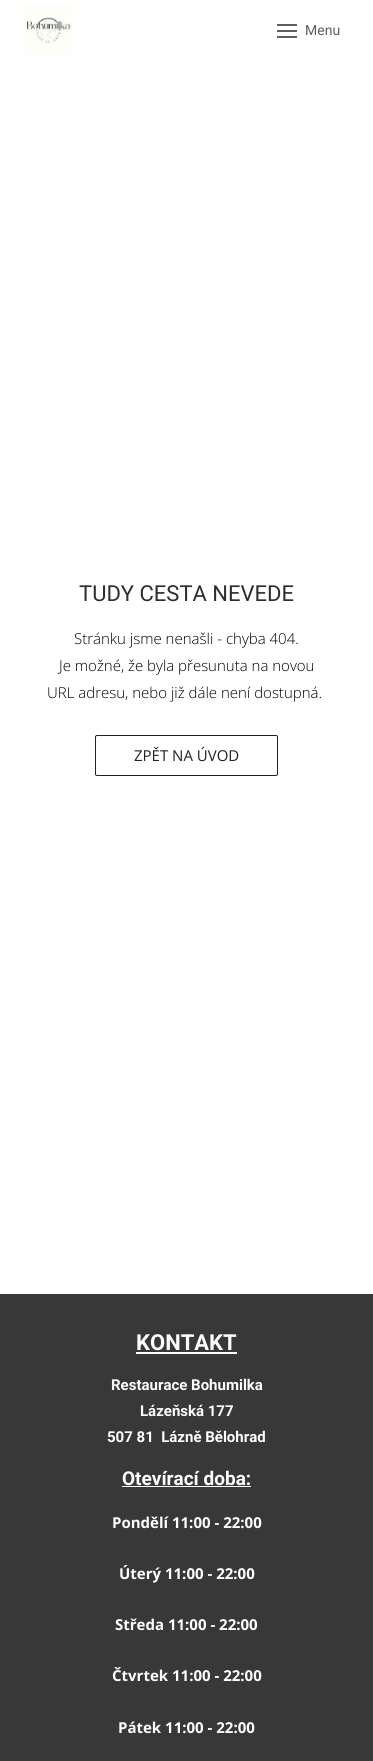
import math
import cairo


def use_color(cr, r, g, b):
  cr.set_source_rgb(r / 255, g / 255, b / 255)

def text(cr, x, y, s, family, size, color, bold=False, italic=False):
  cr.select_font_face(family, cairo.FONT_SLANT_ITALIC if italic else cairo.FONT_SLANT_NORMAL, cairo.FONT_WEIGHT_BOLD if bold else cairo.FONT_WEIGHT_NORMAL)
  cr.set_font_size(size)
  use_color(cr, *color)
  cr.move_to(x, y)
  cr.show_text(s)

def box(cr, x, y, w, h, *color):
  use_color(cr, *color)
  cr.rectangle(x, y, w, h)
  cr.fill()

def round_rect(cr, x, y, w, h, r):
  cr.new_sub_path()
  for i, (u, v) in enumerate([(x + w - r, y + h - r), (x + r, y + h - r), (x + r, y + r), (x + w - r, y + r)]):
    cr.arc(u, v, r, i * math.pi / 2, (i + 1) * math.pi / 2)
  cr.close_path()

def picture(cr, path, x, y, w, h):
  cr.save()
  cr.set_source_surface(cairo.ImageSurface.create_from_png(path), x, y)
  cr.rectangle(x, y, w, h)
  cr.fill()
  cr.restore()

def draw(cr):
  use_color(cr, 255, 255, 255)
  cr.paint()
  picture(cr, "img_01.png", 24, 6, 49, 49)
  box(cr, 277, 24, 20, 2, 94, 94, 94)
  box(cr, 277, 30, 20, 2, 94, 94, 94)
  box(cr, 277, 36, 20, 2, 94, 94, 94)
  round_rect(cr, 95.5, 735.5, 182, 40, 1.5)
  use_color(cr, 33, 33, 33)
  cr.set_line_width(1)
  cr.stroke()
  box(cr, 0, 1294, 373, 467, 56, 56, 56)
  box(cr, 136, 1352, 101, 2, 255, 254, 254)
  box(cr, 122, 1486, 129, 1, 255, 254, 254)
  text(cr, 305, 35, "Menu", "Roboto", 14, (94, 94, 94))
  text(cr, 79, 601, "TUDY CESTA NEVEDE", "Roboto", 22, (46, 46, 46))
  text(cr, 74, 644, "Stránku jsme nenašli - chyba 404.", "Open Sans Light", 15, (0, 0, 0))
  text(cr, 59, 671, "Je možné, že byla přesunuta na novou", "Open Sans Light", 15, (0, 0, 0))
  text(cr, 47, 698, "URL adresu, nebo již dále není dostupná.", "Open Sans Light", 15, (0, 0, 0))
  text(cr, 134, 761, "ZPĚT NA ÚVOD", "Open Sans", 15, (33, 33, 33))
  text(cr, 136, 1350, "KONTAKT", "Roboto", 22, (255, 254, 254), bold=True)
  text(cr, 111, 1390, "Restaurace Bohumilka", "Roboto", 15, (255, 254, 254), bold=True)
  text(cr, 140, 1416, "Lázeňská 177", "Roboto", 15, (255, 254, 254), bold=True)
  text(cr, 107, 1442, "507 81  Lázně Bělohrad", "Roboto", 15, (255, 254, 254), bold=True)
  text(cr, 122, 1485, "Otevírací doba:", "Roboto", 19, (255, 254, 254), bold=True)
  text(cr, 112, 1528, "Pondělí 11:00 - 22:00", "Open Sans", 15, (255, 254, 254), bold=True)
  text(cr, 119, 1579, "Úterý 11:00 - 22:00", "Open Sans", 15, (255, 254, 254), bold=True)
  text(cr, 115, 1630, "Středa 11:00 - 22:00", "Open Sans", 15, (255, 254, 254), bold=True)
  text(cr, 112, 1681, "Čtvrtek 11:00 - 22:00", "Open Sans", 15, (255, 254, 254), bold=True)
  text(cr, 118, 1733, "Pátek 11:00 - 22:00", "Open Sans", 15, (255, 254, 254), bold=True)


surface = cairo.ImageSurface(cairo.FORMAT_RGB24, 373, 1761)
cr = cairo.Context(surface)
options = cairo.FontOptions()
options.set_hint_metrics(cairo.HINT_METRICS_OFF)
options.set_hint_style(cairo.HINT_STYLE_NONE)
cr.set_font_options(options)
cr.set_miter_limit(4)
draw(cr)
surface.write_to_png("out.png")
